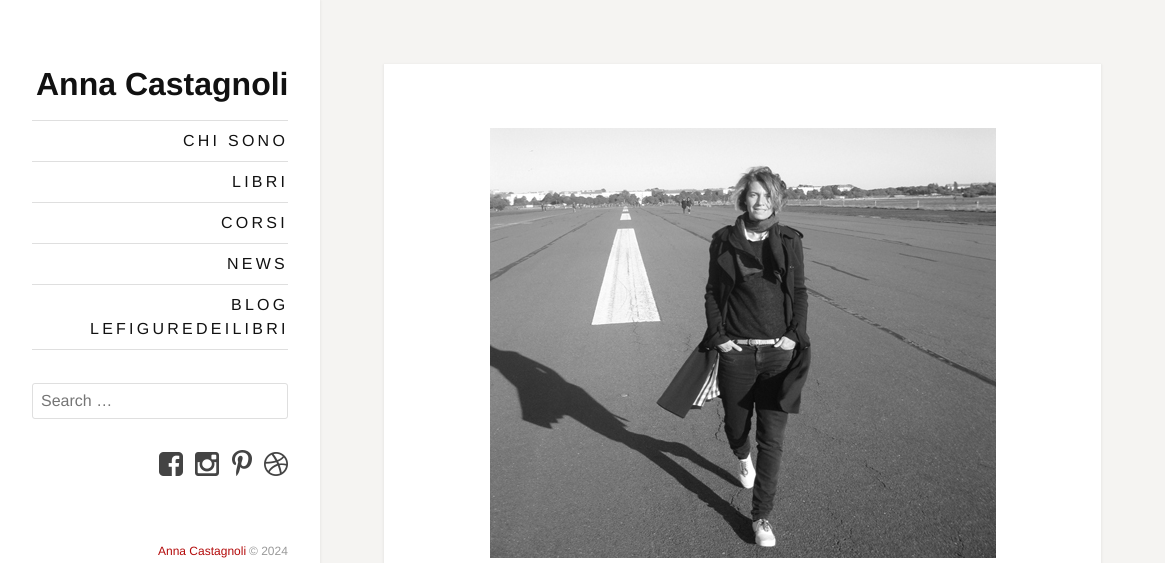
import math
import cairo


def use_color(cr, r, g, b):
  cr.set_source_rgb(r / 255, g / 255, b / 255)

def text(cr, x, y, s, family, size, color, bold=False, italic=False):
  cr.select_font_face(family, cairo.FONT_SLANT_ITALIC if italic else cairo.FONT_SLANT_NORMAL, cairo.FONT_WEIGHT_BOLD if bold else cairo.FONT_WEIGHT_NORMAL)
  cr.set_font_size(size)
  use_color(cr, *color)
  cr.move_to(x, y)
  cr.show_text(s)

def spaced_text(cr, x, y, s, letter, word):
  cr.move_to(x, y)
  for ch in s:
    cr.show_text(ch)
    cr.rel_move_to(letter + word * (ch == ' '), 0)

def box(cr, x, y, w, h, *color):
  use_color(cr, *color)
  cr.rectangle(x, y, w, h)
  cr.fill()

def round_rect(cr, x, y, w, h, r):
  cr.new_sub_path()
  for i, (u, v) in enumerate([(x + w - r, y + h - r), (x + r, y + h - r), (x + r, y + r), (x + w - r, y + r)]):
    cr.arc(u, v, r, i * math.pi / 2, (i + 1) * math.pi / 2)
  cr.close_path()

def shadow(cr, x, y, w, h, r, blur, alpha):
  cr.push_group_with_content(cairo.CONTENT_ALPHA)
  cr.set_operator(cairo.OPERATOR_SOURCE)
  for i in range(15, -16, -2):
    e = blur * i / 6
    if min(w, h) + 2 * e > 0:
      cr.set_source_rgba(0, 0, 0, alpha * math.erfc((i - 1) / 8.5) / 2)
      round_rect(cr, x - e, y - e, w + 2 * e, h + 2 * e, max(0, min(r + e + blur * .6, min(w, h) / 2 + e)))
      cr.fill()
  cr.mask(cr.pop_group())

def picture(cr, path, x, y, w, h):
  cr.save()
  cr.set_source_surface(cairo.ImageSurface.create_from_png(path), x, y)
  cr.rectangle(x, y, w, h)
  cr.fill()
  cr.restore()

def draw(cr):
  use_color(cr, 245, 244, 242)
  cr.paint()
  use_color(cr, 99, 99, 99)
  shadow(cr, 0, 1, 320, 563, 0, 1.5, 0.15)
  box(cr, 0, 0, 320, 563, 255, 255, 255)
  box(cr, 32, 120, 256, 1, 223, 223, 223)
  box(cr, 32, 161, 256, 1, 223, 223, 223)
  box(cr, 32, 202, 256, 1, 223, 223, 223)
  box(cr, 32, 243, 256, 1, 223, 223, 223)
  box(cr, 32, 284, 256, 1, 223, 223, 223)
  box(cr, 32, 349, 256, 1, 223, 223, 223)
  round_rect(cr, 32.5, 383.5, 255, 35, 2.5)
  cr.set_line_width(1)
  cr.stroke()
  picture(cr, "img_01.png", 159, 452, 24, 24)
  picture(cr, "img_02.png", 195, 452, 24, 24)
  picture(cr, "img_03.png", 232, 450, 20, 26)
  picture(cr, "img_04.png", 264, 452, 24, 24)
  use_color(cr, 99, 99, 99)
  shadow(cr, 384, 65, 717, 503, 0, 1.5, 0.15)
  box(cr, 384, 64, 717, 499, 255, 255, 255)
  picture(cr, "img_05.png", 490, 128, 506, 430)
  text(cr, 36, 95, "Anna Castagnoli", "Liberation Sans", 32, (17, 17, 17), bold=True)
  cr.select_font_face("Liberation Sans")
  cr.set_font_size(16)
  spaced_text(cr, 183, 146, "CHI SONO", 3.25, 0)
  spaced_text(cr, 232, 187, "LIBRI", 3.25, 0)
  spaced_text(cr, 221, 228, "CORSI", 3.25, 0)
  spaced_text(cr, 227, 269, "NEWS", 3.25, 0)
  spaced_text(cr, 231, 310, "BLOG", 3.25, 0)
  spaced_text(cr, 90, 334, "LEFIGUREDEILIBRI", 3.25, 0)
  text(cr, 41, 406, "Search …", "Liberation Sans", 16, (117, 117, 117))
  text(cr, 158, 555, "Anna Castagnoli", "Liberation Sans", 12, (179, 10, 10))
  text(cr, 249, 555, "© 2024", "Liberation Sans", 12, (153, 153, 153))


surface = cairo.ImageSurface(cairo.FORMAT_RGB24, 1165, 563)
cr = cairo.Context(surface)
options = cairo.FontOptions()
options.set_hint_metrics(cairo.HINT_METRICS_OFF)
options.set_hint_style(cairo.HINT_STYLE_NONE)
cr.set_font_options(options)
cr.set_miter_limit(4)
draw(cr)
surface.write_to_png("out.png")
